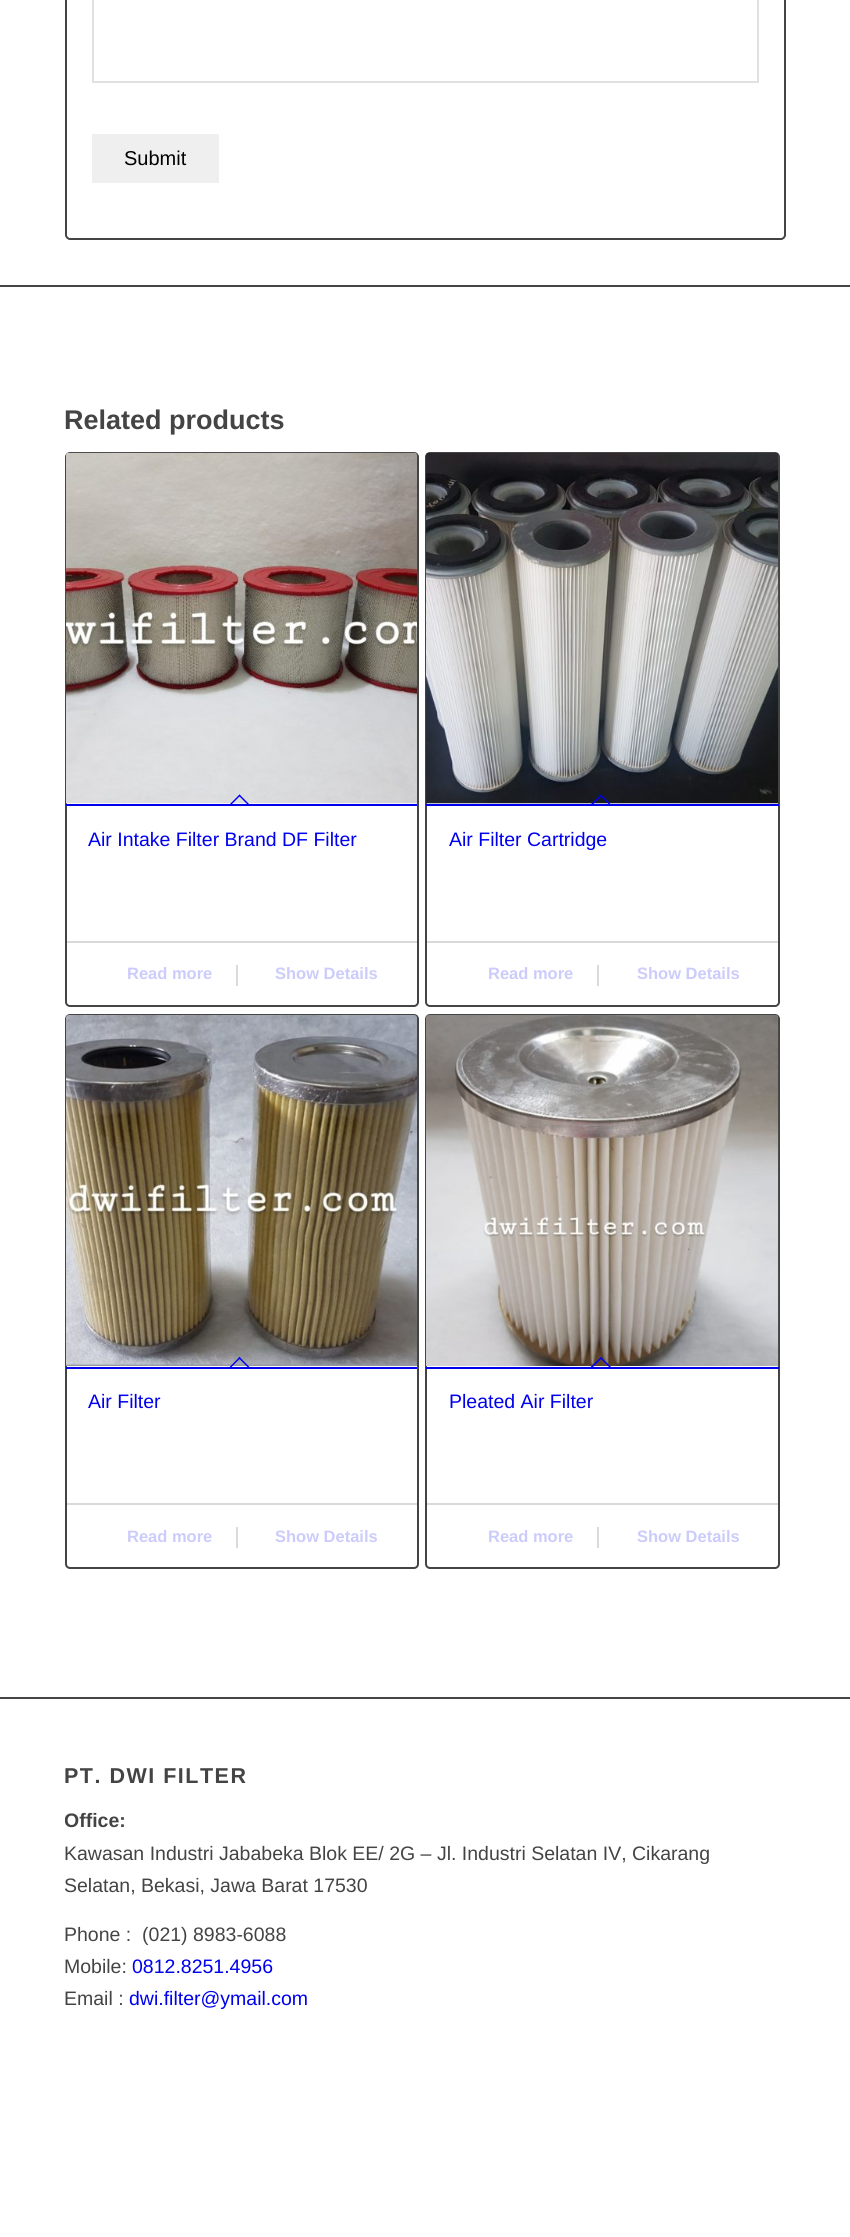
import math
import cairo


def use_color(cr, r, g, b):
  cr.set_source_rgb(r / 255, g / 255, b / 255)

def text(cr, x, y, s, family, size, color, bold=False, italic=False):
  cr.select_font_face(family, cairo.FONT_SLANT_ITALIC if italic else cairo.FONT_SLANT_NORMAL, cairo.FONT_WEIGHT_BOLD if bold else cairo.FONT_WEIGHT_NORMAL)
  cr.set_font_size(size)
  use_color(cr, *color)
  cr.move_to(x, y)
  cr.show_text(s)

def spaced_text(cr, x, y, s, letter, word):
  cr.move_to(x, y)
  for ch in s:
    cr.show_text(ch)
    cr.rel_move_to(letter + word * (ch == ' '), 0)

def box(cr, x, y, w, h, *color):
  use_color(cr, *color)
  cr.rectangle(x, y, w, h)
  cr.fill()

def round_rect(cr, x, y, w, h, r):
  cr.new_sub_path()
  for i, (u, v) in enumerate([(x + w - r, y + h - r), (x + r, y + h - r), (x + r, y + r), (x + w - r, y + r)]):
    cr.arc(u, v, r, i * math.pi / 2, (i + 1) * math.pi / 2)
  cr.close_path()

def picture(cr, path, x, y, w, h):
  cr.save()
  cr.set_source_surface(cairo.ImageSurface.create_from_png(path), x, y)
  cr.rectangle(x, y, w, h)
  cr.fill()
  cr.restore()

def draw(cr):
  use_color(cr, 255, 255, 255)
  cr.paint()
  cr.new_path()
  cr.move_to(66, -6)
  cr.line_to(785, -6)
  cr.line_to(785, 235)
  cr.curve_to(785, 237, 783, 239, 781, 239)
  cr.line_to(70, 239)
  cr.curve_to(68, 239, 66, 237, 66, 235)
  cr.close_path()
  use_color(cr, 68, 68, 68)
  cr.stroke()
  cr.rectangle(93, -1, 665, 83)
  use_color(cr, 225, 225, 225)
  cr.stroke()
  box(cr, 92, 134, 127, 49, 239, 239, 239)
  box(cr, 0, 285, 850, 2, 68, 68, 68)
  round_rect(cr, 66, 453, 352, 553, 4)
  cr.stroke()
  picture(cr, "img_01.png", 66, 452, 351, 352)
  box(cr, 66, 804, 351, 2, 0, 0, 238)
  cr.new_path()
  cr.move_to(239.5, 794.5)
  cr.line_to(250, 805)
  cr.line_to(249, 806)
  cr.line_to(238.5, 795.5)
  cr.close_path()
  cr.fill()
  cr.new_path()
  cr.move_to(239.5, 794.5)
  cr.line_to(240.5, 795.5)
  cr.line_to(230, 806)
  cr.line_to(229, 805)
  cr.close_path()
  cr.fill()
  cr.set_source_rgba(0.267, 0.267, 0.267, 0.2)
  cr.rectangle(66, 941, 351, 2)
  cr.fill()
  box(cr, 236, 965, 2, 21, 218, 218, 218)
  round_rect(cr, 426, 453, 353, 553, 4)
  use_color(cr, 68, 68, 68)
  cr.stroke()
  picture(cr, "img_02.png", 426, 453, 353, 351)
  box(cr, 426, 804, 353, 2, 0, 0, 238)
  cr.new_path()
  cr.move_to(601, 794.5)
  cr.line_to(611.5, 805)
  cr.line_to(610.5, 806)
  cr.line_to(600, 795.5)
  cr.close_path()
  cr.fill()
  cr.new_path()
  cr.move_to(601, 794.5)
  cr.line_to(602, 795.5)
  cr.line_to(591.5, 806)
  cr.line_to(590, 805)
  cr.close_path()
  cr.fill()
  cr.set_source_rgba(0.267, 0.267, 0.267, 0.2)
  cr.rectangle(426, 941, 353, 2)
  cr.fill()
  box(cr, 597, 965, 2, 21, 218, 218, 218)
  round_rect(cr, 66, 1015, 352, 553, 4)
  use_color(cr, 68, 68, 68)
  cr.stroke()
  picture(cr, "img_03.png", 66, 1015, 351, 351)
  box(cr, 66, 1367, 351, 2, 0, 0, 238)
  cr.new_path()
  cr.move_to(239.5, 1357)
  cr.line_to(250, 1367.5)
  cr.line_to(249, 1368.5)
  cr.line_to(238.5, 1358)
  cr.close_path()
  cr.fill()
  cr.new_path()
  cr.move_to(239.5, 1357)
  cr.line_to(240.5, 1358)
  cr.line_to(230, 1368.5)
  cr.line_to(229, 1367.5)
  cr.close_path()
  cr.fill()
  cr.set_source_rgba(0.267, 0.267, 0.267, 0.2)
  cr.rectangle(66, 1503, 351, 2)
  cr.fill()
  box(cr, 236, 1527, 2, 21, 218, 218, 218)
  round_rect(cr, 426, 1015, 353, 553, 4)
  use_color(cr, 68, 68, 68)
  cr.stroke()
  picture(cr, "img_04.png", 426, 1015, 353, 351)
  box(cr, 426, 1367, 353, 2, 0, 0, 238)
  cr.new_path()
  cr.move_to(601, 1357)
  cr.line_to(611.5, 1367.5)
  cr.line_to(610.5, 1368.5)
  cr.line_to(600, 1358)
  cr.close_path()
  cr.fill()
  cr.new_path()
  cr.move_to(601, 1357)
  cr.line_to(602, 1358)
  cr.line_to(591.5, 1368.5)
  cr.line_to(590, 1367.5)
  cr.close_path()
  cr.fill()
  cr.set_source_rgba(0.267, 0.267, 0.267, 0.2)
  cr.rectangle(426, 1503, 353, 2)
  cr.fill()
  box(cr, 597, 1527, 2, 21, 218, 218, 218)
  box(cr, 0, 1697, 850, 2, 68, 68, 68)
  text(cr, 124, 165, "Submit", "Liberation Sans", 20, (0, 0, 0))
  text(cr, 64, 429, "Related products", "Liberation Sans", 27, (68, 68, 68), bold=True)
  text(cr, 88, 846, "Air Intake Filter Brand DF Filter", "Liberation Sans", 19.5, (0, 0, 238))
  text(cr, 127, 979, "Read more", "Liberation Sans", 16.5, (204, 204, 252), bold=True)
  text(cr, 275, 979, "Show Details", "Liberation Sans", 16.5, (204, 204, 252), bold=True)
  text(cr, 449, 846, "Air Filter Cartridge", "Liberation Sans", 19.5, (0, 0, 238))
  text(cr, 488, 979, "Read more", "Liberation Sans", 16.5, (204, 204, 252), bold=True)
  text(cr, 637, 979, "Show Details", "Liberation Sans", 16.5, (204, 204, 252), bold=True)
  text(cr, 88, 1408, "Air Filter", "Liberation Sans", 19.5, (0, 0, 238))
  text(cr, 127, 1542, "Read more", "Liberation Sans", 16.5, (204, 204, 252), bold=True)
  text(cr, 275, 1542, "Show Details", "Liberation Sans", 16.5, (204, 204, 252), bold=True)
  text(cr, 449, 1408, "Pleated Air Filter", "Liberation Sans", 19.5, (0, 0, 238))
  text(cr, 488, 1542, "Read more", "Liberation Sans", 16.5, (204, 204, 252), bold=True)
  text(cr, 637, 1542, "Show Details", "Liberation Sans", 16.5, (204, 204, 252), bold=True)
  cr.set_font_size(21.5)
  use_color(cr, 68, 68, 68)
  spaced_text(cr, 64, 1783, "PT. DWI FILTER", 1.5, 0)
  cr.save()
  cr.rectangle(65, 1766, 721, 265)
  cr.clip()
  text(cr, 64, 1827, "Office:", "Liberation Sans", 19.5, (68, 68, 68), bold=True)
  cr.restore()
  text(cr, 64, 1860, "Kawasan Industri Jababeka Blok EE/ 2G – Jl. Industri Selatan IV, Cikarang", "Liberation Sans", 19.5, (68, 68, 68))
  text(cr, 64, 1892, "Selatan, Bekasi, Jawa Barat 17530", "Liberation Sans", 19.5, (68, 68, 68))
  text(cr, 64, 1941, "Phone :  (021) 8983-6088", "Liberation Sans", 19.5, (68, 68, 68))
  text(cr, 64, 1973, "Mobile:", "Liberation Sans", 19.5, (68, 68, 68))
  text(cr, 132, 1973, "0812.8251.4956", "Liberation Sans", 19.5, (0, 0, 238))
  text(cr, 64, 2005, "Email :", "Liberation Sans", 19.5, (68, 68, 68))
  text(cr, 129, 2005, "dwi.filter@ymail.com", "Liberation Sans", 19.5, (0, 0, 238))


surface = cairo.ImageSurface(cairo.FORMAT_RGB24, 850, 2237)
cr = cairo.Context(surface)
options = cairo.FontOptions()
options.set_hint_metrics(cairo.HINT_METRICS_OFF)
options.set_hint_style(cairo.HINT_STYLE_NONE)
cr.set_font_options(options)
cr.set_miter_limit(4)
draw(cr)
surface.write_to_png("out.png")
